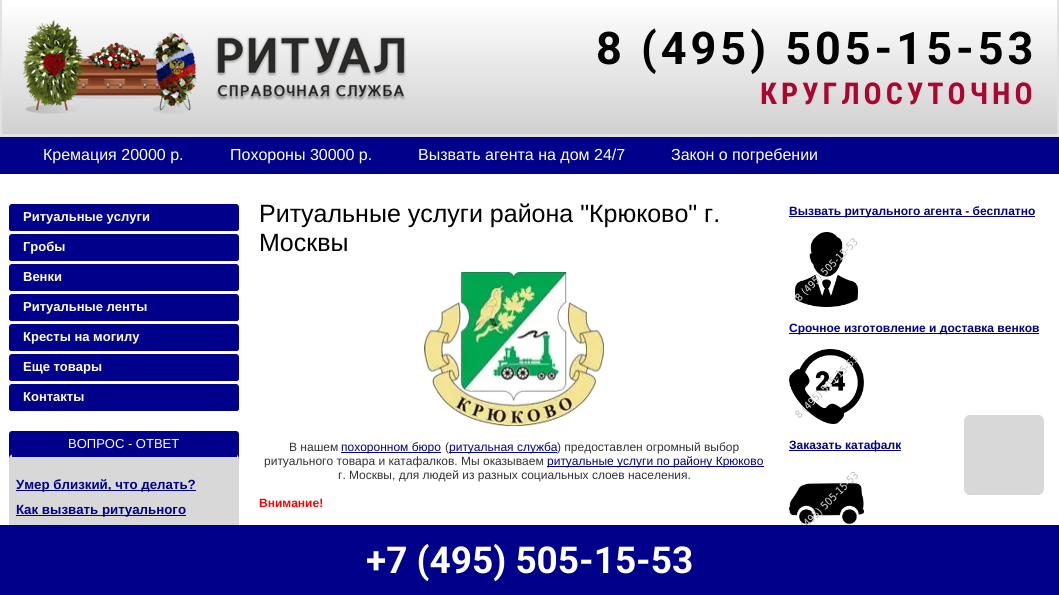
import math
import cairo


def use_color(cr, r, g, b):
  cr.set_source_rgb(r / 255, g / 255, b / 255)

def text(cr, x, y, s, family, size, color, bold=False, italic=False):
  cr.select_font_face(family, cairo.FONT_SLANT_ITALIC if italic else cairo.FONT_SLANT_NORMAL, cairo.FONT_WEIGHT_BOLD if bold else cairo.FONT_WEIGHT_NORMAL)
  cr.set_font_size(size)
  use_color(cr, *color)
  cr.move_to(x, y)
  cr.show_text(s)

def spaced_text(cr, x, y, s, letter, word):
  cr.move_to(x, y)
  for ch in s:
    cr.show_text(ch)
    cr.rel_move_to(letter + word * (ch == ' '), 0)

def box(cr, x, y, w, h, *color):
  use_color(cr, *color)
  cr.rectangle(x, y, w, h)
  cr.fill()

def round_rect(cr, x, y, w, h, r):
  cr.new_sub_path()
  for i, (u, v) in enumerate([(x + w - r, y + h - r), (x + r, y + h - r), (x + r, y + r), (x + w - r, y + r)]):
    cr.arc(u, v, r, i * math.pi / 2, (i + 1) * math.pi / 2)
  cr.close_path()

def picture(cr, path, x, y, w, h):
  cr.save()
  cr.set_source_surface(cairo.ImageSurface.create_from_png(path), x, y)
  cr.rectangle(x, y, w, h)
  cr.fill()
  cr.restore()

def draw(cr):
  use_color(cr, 255, 255, 255)
  cr.paint()
  gradient = cairo.LinearGradient(530, 0, 530, 134)
  gradient.add_color_stop_rgba(0, 1, 1, 1, 1)
  gradient.add_color_stop_rgba(1, 0.816, 0.816, 0.816, 1)
  cr.set_source(gradient)
  cr.rectangle(2, 7, 1055, 127)
  cr.fill()
  box(cr, 1057, 0, 2, 137, 226, 226, 226)
  box(cr, 0, 134, 1059, 3, 226, 226, 226)
  box(cr, 0, 0, 2, 137, 226, 226, 226)
  picture(cr, "img_01.png", 22, 20, 384, 94)
  box(cr, 0, 137, 1059, 37, 0, 0, 139)
  round_rect(cr, 9, 204, 230, 27, 3)
  cr.fill()
  cr.new_path()
  cr.move_to(9, 225)
  cr.line_to(9, 228)
  cr.curve_to(9, 230, 10, 231, 12, 231)
  cr.line_to(236, 231)
  cr.curve_to(238, 231, 239, 230, 239, 228)
  cr.line_to(239, 225)
  cr.curve_to(239, 227, 238, 228, 236, 228)
  cr.line_to(12, 228)
  cr.curve_to(10, 228, 9, 227, 9, 225)
  cr.close_path()
  cr.fill()
  round_rect(cr, 9, 234, 230, 27, 3)
  cr.fill()
  cr.new_path()
  cr.move_to(9, 255)
  cr.line_to(9, 258)
  cr.curve_to(9, 260, 10, 261, 12, 261)
  cr.line_to(236, 261)
  cr.curve_to(238, 261, 239, 260, 239, 258)
  cr.line_to(239, 255)
  cr.curve_to(239, 257, 238, 258, 236, 258)
  cr.line_to(12, 258)
  cr.curve_to(10, 258, 9, 257, 9, 255)
  cr.close_path()
  cr.fill()
  round_rect(cr, 9, 264, 230, 27, 3)
  cr.fill()
  cr.new_path()
  cr.move_to(9, 285)
  cr.line_to(9, 288)
  cr.curve_to(9, 290, 10, 291, 12, 291)
  cr.line_to(236, 291)
  cr.curve_to(238, 291, 239, 290, 239, 288)
  cr.line_to(239, 285)
  cr.curve_to(239, 287, 238, 288, 236, 288)
  cr.line_to(12, 288)
  cr.curve_to(10, 288, 9, 287, 9, 285)
  cr.close_path()
  cr.fill()
  round_rect(cr, 9, 294, 230, 27, 3)
  cr.fill()
  cr.new_path()
  cr.move_to(9, 315)
  cr.line_to(9, 318)
  cr.curve_to(9, 320, 10, 321, 12, 321)
  cr.line_to(236, 321)
  cr.curve_to(238, 321, 239, 320, 239, 318)
  cr.line_to(239, 315)
  cr.curve_to(239, 317, 238, 318, 236, 318)
  cr.line_to(12, 318)
  cr.curve_to(10, 318, 9, 317, 9, 315)
  cr.close_path()
  cr.fill()
  round_rect(cr, 9, 324, 230, 27, 3)
  cr.fill()
  cr.new_path()
  cr.move_to(9, 345)
  cr.line_to(9, 348)
  cr.curve_to(9, 350, 10, 351, 12, 351)
  cr.line_to(236, 351)
  cr.curve_to(238, 351, 239, 350, 239, 348)
  cr.line_to(239, 345)
  cr.curve_to(239, 347, 238, 348, 236, 348)
  cr.line_to(12, 348)
  cr.curve_to(10, 348, 9, 347, 9, 345)
  cr.close_path()
  cr.fill()
  round_rect(cr, 9, 354, 230, 27, 3)
  cr.fill()
  cr.new_path()
  cr.move_to(9, 375)
  cr.line_to(9, 378)
  cr.curve_to(9, 380, 10, 381, 12, 381)
  cr.line_to(236, 381)
  cr.curve_to(238, 381, 239, 380, 239, 378)
  cr.line_to(239, 375)
  cr.curve_to(239, 377, 238, 378, 236, 378)
  cr.line_to(12, 378)
  cr.curve_to(10, 378, 9, 377, 9, 375)
  cr.close_path()
  cr.fill()
  round_rect(cr, 9, 384, 230, 27, 3)
  cr.fill()
  cr.new_path()
  cr.move_to(9, 405)
  cr.line_to(9, 408)
  cr.curve_to(9, 410, 10, 411, 12, 411)
  cr.line_to(236, 411)
  cr.curve_to(238, 411, 239, 410, 239, 408)
  cr.line_to(239, 405)
  cr.curve_to(239, 407, 238, 408, 236, 408)
  cr.line_to(12, 408)
  cr.curve_to(10, 408, 9, 407, 9, 405)
  cr.close_path()
  cr.fill()
  round_rect(cr, 9, 431, 230, 31, 3)
  cr.fill()
  use_color(cr, 216, 216, 216)
  round_rect(cr, 9, 454, 230, 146, 5)
  cr.fill()
  box(cr, 12, 454, 225, 3, 0, 0, 139)
  box(cr, 16, 490, 180, 1, 0, 0, 139)
  box(cr, 16, 515, 170, 1, 0, 0, 139)
  picture(cr, "img_02.png", 424, 272, 180, 154)
  box(cr, 341, 452, 100, 1, 0, 0, 139)
  box(cr, 449, 452, 108, 1, 0, 0, 139)
  box(cr, 547, 466, 217, 1, 0, 0, 139)
  box(cr, 789, 216, 246, 1, 0, 0, 139)
  picture(cr, "img_03.png", 795, 232, 63, 75)
  box(cr, 789, 333, 250, 1, 0, 0, 139)
  picture(cr, "img_04.png", 789, 349, 75, 75)
  box(cr, 789, 450, 112, 1, 0, 0, 139)
  picture(cr, "img_05.png", 789, 471, 75, 54)
  use_color(cr, 216, 216, 216)
  round_rect(cr, 964, 415, 80, 80, 6)
  cr.fill()
  box(cr, 0, 525, 1059, 70, 0, 0, 139)
  cr.select_font_face("Roboto", cairo.FONT_SLANT_NORMAL, cairo.FONT_WEIGHT_BOLD)
  cr.set_font_size(45)
  use_color(cr, 0, 0, 0)
  spaced_text(cr, 596, 64, "8 (495) 505-15-53", 4, 0)
  cr.select_font_face("Roboto Condensed", cairo.FONT_SLANT_NORMAL, cairo.FONT_WEIGHT_BOLD)
  cr.set_font_size(30)
  use_color(cr, 170, 6, 49)
  spaced_text(cr, 760, 104, "КРУГЛОСУТОЧНО", 4, 0)
  text(cr, 43, 160, "Кремация 20000 р.", "Liberation Sans", 16, (255, 255, 255))
  text(cr, 230, 160, "Похороны 30000 р.", "Liberation Sans", 16, (255, 255, 255))
  text(cr, 418, 160, "Вызвать агента на дом 24/7", "Liberation Sans", 16, (255, 255, 255))
  text(cr, 671, 160, "Закон о погребении", "Liberation Sans", 16, (255, 255, 255))
  text(cr, 23, 221, "Ритуальные услуги", "Liberation Sans", 13, (255, 255, 255), bold=True)
  text(cr, 23, 251, "Гробы", "Liberation Sans", 13, (255, 255, 255), bold=True)
  text(cr, 23, 281, "Венки", "Liberation Sans", 13, (255, 255, 255), bold=True)
  text(cr, 23, 311, "Ритуальные ленты", "Liberation Sans", 13, (255, 255, 255), bold=True)
  text(cr, 23, 341, "Кресты на могилу", "Liberation Sans", 13, (255, 255, 255), bold=True)
  text(cr, 23, 371, "Еще товары", "Liberation Sans", 13, (255, 255, 255), bold=True)
  text(cr, 23, 401, "Контакты", "Liberation Sans", 13, (255, 255, 255), bold=True)
  text(cr, 68, 448, "ВОПРОС - ОТВЕТ", "Liberation Sans", 13, (255, 255, 255))
  text(cr, 16, 489, "Умер близкий, что делать?", "Liberation Sans", 13.3, (0, 0, 139), bold=True)
  text(cr, 16, 514, "Как вызвать ритуального", "Liberation Sans", 13.3, (0, 0, 139), bold=True)
  text(cr, 259, 222, "Ритуальные услуги района \"Крюково\" г.", "Liberation Sans", 25, (0, 0, 0))
  text(cr, 259, 251, "Москвы", "Liberation Sans", 25, (0, 0, 0))
  text(cr, 289, 451, "В нашем", "Liberation Sans", 12, (50, 50, 50))
  text(cr, 341, 451, "похоронном бюро", "Liberation Sans", 12, (0, 0, 139))
  text(cr, 445, 451, "(", "Liberation Sans", 12, (50, 50, 50))
  text(cr, 449, 451, "ритуальная служба", "Liberation Sans", 12, (0, 0, 139))
  text(cr, 557, 451, ") предоставлен огромный выбор", "Liberation Sans", 12, (50, 50, 50))
  text(cr, 264, 465, "ритуального товара и катафалков. Мы оказываем", "Liberation Sans", 12, (50, 50, 50))
  text(cr, 547, 465, "ритуальные услуги по району Крюково", "Liberation Sans", 12, (0, 0, 139))
  text(cr, 338, 479, "г. Москвы, для людей из разных социальных слоев населения.", "Liberation Sans", 12, (50, 50, 50))
  text(cr, 259, 507, "Внимание!", "Liberation Sans", 12, (255, 0, 0), bold=True)
  text(cr, 789, 215, "Вызвать ритуального агента - бесплатно", "Liberation Sans", 12, (0, 0, 139), bold=True)
  text(cr, 789, 332, "Срочное изготовление и доставка венков", "Liberation Sans", 12, (0, 0, 139), bold=True)
  text(cr, 789, 449, "Заказать катафалк", "Liberation Sans", 12, (0, 0, 139), bold=True)
  text(cr, 366, 573, "+7 (495) 505-15-53", "Roboto", 37, (255, 255, 255), bold=True)


surface = cairo.ImageSurface(cairo.FORMAT_RGB24, 1059, 595)
cr = cairo.Context(surface)
options = cairo.FontOptions()
options.set_hint_metrics(cairo.HINT_METRICS_OFF)
options.set_hint_style(cairo.HINT_STYLE_NONE)
cr.set_font_options(options)
cr.set_miter_limit(4)
draw(cr)
surface.write_to_png("out.png")
